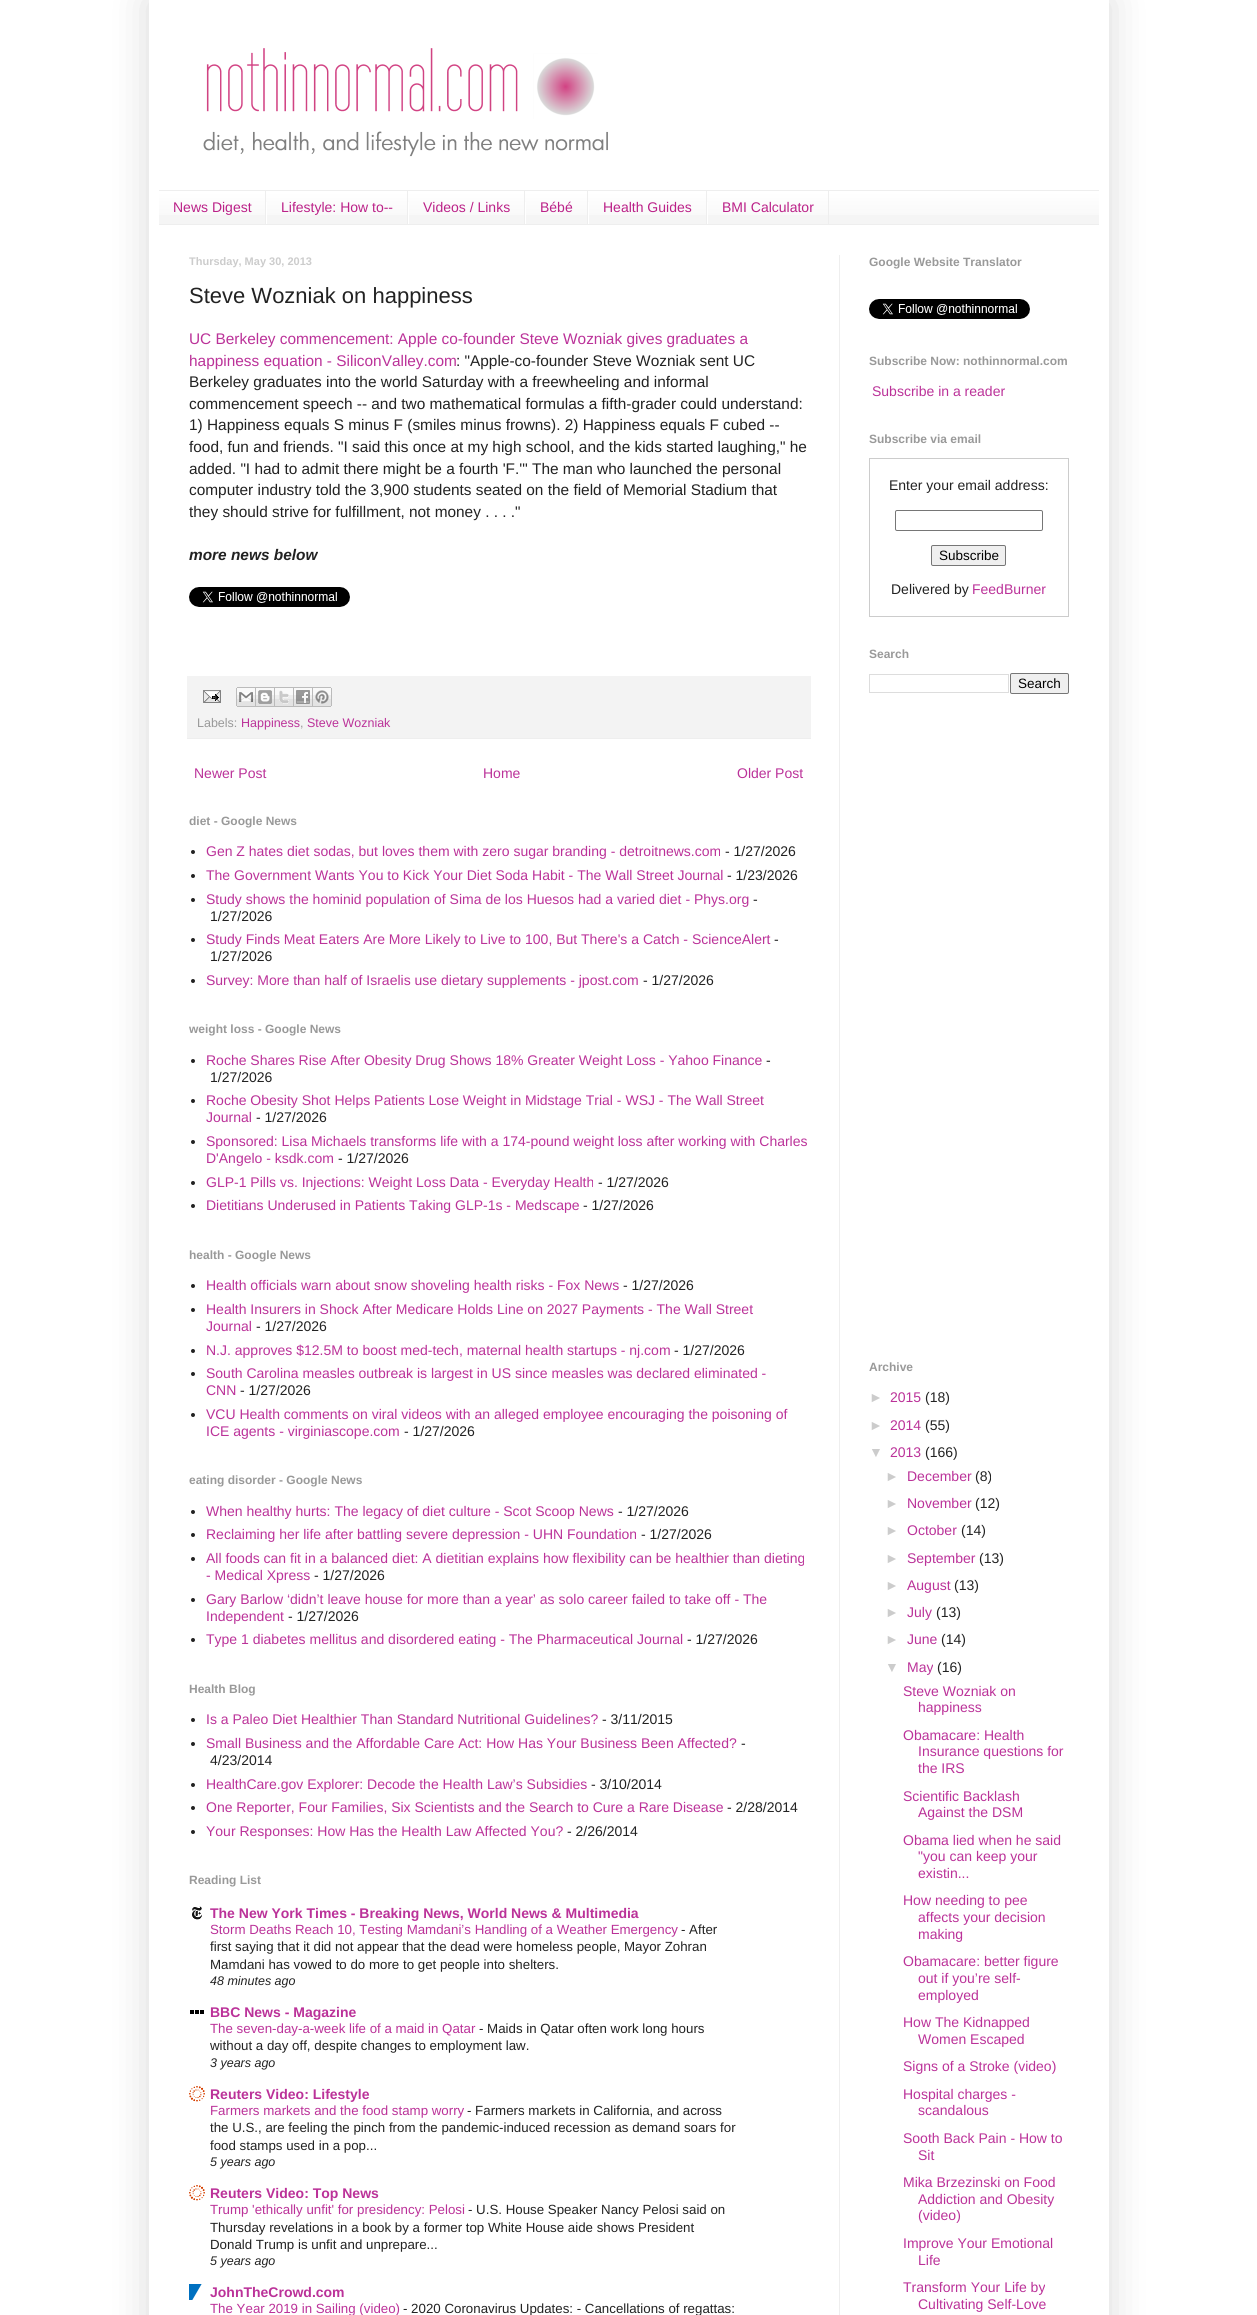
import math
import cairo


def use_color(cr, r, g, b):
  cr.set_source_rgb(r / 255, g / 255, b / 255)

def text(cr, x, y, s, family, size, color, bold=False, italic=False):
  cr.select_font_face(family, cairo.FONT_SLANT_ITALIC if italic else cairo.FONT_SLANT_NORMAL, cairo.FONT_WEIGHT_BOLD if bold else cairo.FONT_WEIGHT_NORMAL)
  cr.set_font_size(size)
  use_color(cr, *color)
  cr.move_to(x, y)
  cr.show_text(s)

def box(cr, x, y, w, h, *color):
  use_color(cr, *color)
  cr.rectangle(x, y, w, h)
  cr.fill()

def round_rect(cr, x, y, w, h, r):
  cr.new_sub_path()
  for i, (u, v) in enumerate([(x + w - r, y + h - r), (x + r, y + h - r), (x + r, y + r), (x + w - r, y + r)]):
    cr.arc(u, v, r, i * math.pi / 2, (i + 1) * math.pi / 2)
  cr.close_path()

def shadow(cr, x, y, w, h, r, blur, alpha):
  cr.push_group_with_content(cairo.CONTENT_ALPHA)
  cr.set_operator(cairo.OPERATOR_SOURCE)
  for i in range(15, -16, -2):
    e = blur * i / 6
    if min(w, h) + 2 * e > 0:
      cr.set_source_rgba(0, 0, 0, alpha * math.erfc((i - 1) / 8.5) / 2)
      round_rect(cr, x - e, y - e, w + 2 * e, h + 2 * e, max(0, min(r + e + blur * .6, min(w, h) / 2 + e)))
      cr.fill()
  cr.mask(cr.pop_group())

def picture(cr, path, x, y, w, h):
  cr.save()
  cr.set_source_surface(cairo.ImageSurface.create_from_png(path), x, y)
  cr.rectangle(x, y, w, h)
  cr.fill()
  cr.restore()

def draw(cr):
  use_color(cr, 255, 255, 255)
  cr.paint()
  cr.save()
  cr.set_fill_rule(cairo.FILL_RULE_EVEN_ODD)
  cr.new_path()
  cr.move_to(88, 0)
  cr.line_to(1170, 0)
  cr.line_to(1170, 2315)
  cr.line_to(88, 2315)
  cr.close_path()
  cr.move_to(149, 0)
  cr.line_to(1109, 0)
  cr.line_to(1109, 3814)
  cr.line_to(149, 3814)
  cr.close_path()
  cr.clip()
  use_color(cr, 0, 0, 0)
  shadow(cr, 149, 0, 960, 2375, 0, 20, 0.15)
  cr.restore()
  picture(cr, "img_01.png", 203, 48, 405, 109)
  box(cr, 159, 192, 940, 32, 245, 245, 245)
  picture(cr, "img_02.png", 159, 191, 940, 24)
  box(cr, 159, 190, 940, 1, 238, 238, 238)
  box(cr, 159, 224, 940, 1, 238, 238, 238)
  box(cr, 265, 191, 1, 33, 238, 238, 238)
  box(cr, 407, 191, 1, 33, 238, 238, 238)
  box(cr, 266, 202, 1, 22, 255, 255, 255)
  box(cr, 524, 191, 1, 33, 238, 238, 238)
  box(cr, 408, 202, 1, 22, 255, 255, 255)
  box(cr, 587, 191, 1, 33, 238, 238, 238)
  box(cr, 525, 202, 1, 22, 255, 255, 255)
  box(cr, 706, 191, 1, 33, 238, 238, 238)
  box(cr, 588, 202, 1, 22, 255, 255, 255)
  box(cr, 828, 191, 1, 33, 238, 238, 238)
  box(cr, 707, 202, 1, 22, 255, 255, 255)
  box(cr, 839, 255, 1, 2060, 238, 238, 238)
  picture(cr, "img_03.png", 189, 587, 161, 20)
  box(cr, 187, 676, 624, 62, 243, 243, 243)
  box(cr, 187, 738, 624, 1, 238, 238, 238)
  picture(cr, "img_04.png", 203, 690, 18, 13)
  picture(cr, "img_05.png", 236, 687, 20, 20)
  picture(cr, "img_06.png", 256, 687, 19, 20)
  picture(cr, "img_07.png", 275, 687, 19, 20)
  picture(cr, "img_08.png", 294, 687, 19, 20)
  picture(cr, "img_09.png", 313, 687, 19, 20)
  use_color(cr, 34, 34, 34)
  cr.arc(193, 852, 2, 0, 2 * math.pi)
  cr.fill()
  cr.arc(193, 876, 2, 0, 2 * math.pi)
  cr.fill()
  cr.arc(193, 900, 2, 0, 2 * math.pi)
  cr.fill()
  cr.arc(193, 940, 2, 0, 2 * math.pi)
  cr.fill()
  cr.arc(193, 981, 2, 0, 2 * math.pi)
  cr.fill()
  cr.arc(193, 1061, 2, 0, 2 * math.pi)
  cr.fill()
  cr.arc(193, 1101, 2, 0, 2 * math.pi)
  cr.fill()
  cr.arc(193, 1142, 2, 0, 2 * math.pi)
  cr.fill()
  cr.arc(193, 1183, 2, 0, 2 * math.pi)
  cr.fill()
  cr.arc(193, 1206, 2, 0, 2 * math.pi)
  cr.fill()
  cr.arc(193, 1286, 2, 0, 2 * math.pi)
  cr.fill()
  cr.arc(193, 1310, 2, 0, 2 * math.pi)
  cr.fill()
  cr.arc(193, 1351, 2, 0, 2 * math.pi)
  cr.fill()
  cr.arc(193, 1374, 2, 0, 2 * math.pi)
  cr.fill()
  cr.arc(193, 1415, 2, 0, 2 * math.pi)
  cr.fill()
  cr.arc(193, 1512, 2, 0, 2 * math.pi)
  cr.fill()
  cr.arc(193, 1535, 2, 0, 2 * math.pi)
  cr.fill()
  cr.arc(193, 1559, 2, 0, 2 * math.pi)
  cr.fill()
  cr.arc(193, 1600, 2, 0, 2 * math.pi)
  cr.fill()
  cr.arc(193, 1640, 2, 0, 2 * math.pi)
  cr.fill()
  cr.arc(193, 1720, 2, 0, 2 * math.pi)
  cr.fill()
  cr.arc(193, 1744, 2, 0, 2 * math.pi)
  cr.fill()
  cr.arc(193, 1785, 2, 0, 2 * math.pi)
  cr.fill()
  cr.arc(193, 1808, 2, 0, 2 * math.pi)
  cr.fill()
  cr.arc(193, 1832, 2, 0, 2 * math.pi)
  cr.fill()
  picture(cr, "img_10.png", 192, 1906, 10, 14)
  picture(cr, "img_11.png", 190, 2010, 14, 4)
  picture(cr, "img_12.png", 189, 2086, 16, 16)
  picture(cr, "img_12.png", 189, 2185, 16, 16)
  picture(cr, "img_13.png", 189, 2284, 13, 16)
  picture(cr, "img_03.png", 869, 299, 161, 20)
  cr.rectangle(869.5, 458.5, 199, 158)
  use_color(cr, 204, 204, 204)
  cr.set_line_width(1)
  cr.stroke()
  round_rect(cr, 895.5, 510.5, 147, 20, 1.5)
  use_color(cr, 118, 118, 118)
  cr.stroke()
  use_color(cr, 239, 239, 239)
  round_rect(cr, 931.5, 545.5, 74, 20, 1.5)
  cr.fill_preserve()
  use_color(cr, 118, 118, 118)
  cr.stroke()
  cr.rectangle(869.5, 674.5, 139, 18)
  use_color(cr, 221, 221, 221)
  cr.stroke()
  use_color(cr, 239, 239, 239)
  round_rect(cr, 1010.5, 673.5, 58, 20, 1.5)
  cr.fill_preserve()
  use_color(cr, 118, 118, 118)
  cr.stroke()
  text(cr, 173, 212, "News Digest", "Liberation Sans", 14, (187, 33, 136))
  text(cr, 281, 212, "Lifestyle: How to--", "Liberation Sans", 14, (187, 33, 136))
  text(cr, 423, 212, "Videos / Links", "Liberation Sans", 14, (187, 33, 136))
  text(cr, 540, 212, "Bébé", "Liberation Sans", 14, (187, 33, 136))
  text(cr, 603, 212, "Health Guides", "Liberation Sans", 14, (187, 33, 136))
  text(cr, 722, 212, "BMI Calculator", "Liberation Sans", 14, (187, 33, 136))
  text(cr, 189, 265, "Thursday, May 30, 2013", "Liberation Sans", 11, (204, 204, 204), bold=True)
  text(cr, 189, 303, "Steve Wozniak on happiness", "Liberation Sans", 22, (34, 34, 34))
  text(cr, 189, 344, "UC Berkeley commencement: Apple co-founder Steve Wozniak gives graduates a", "Liberation Sans", 15.4, (187, 50, 153))
  text(cr, 189, 366, "happiness equation - SiliconValley.com", "Liberation Sans", 15.4, (187, 50, 153))
  text(cr, 456, 366, ": \"Apple-co-founder Steve Wozniak sent UC", "Liberation Sans", 15.4, (34, 34, 34))
  text(cr, 189, 387, "Berkeley graduates into the world Saturday with a freewheeling and informal", "Liberation Sans", 15.4, (34, 34, 34))
  text(cr, 189, 409, "commencement speech -- and two mathematical formulas a fifth-grader could understand:", "Liberation Sans", 15.4, (34, 34, 34))
  text(cr, 189, 430, "1) Happiness equals S minus F (smiles minus frowns). 2) Happiness equals F cubed --", "Liberation Sans", 15.4, (34, 34, 34))
  text(cr, 189, 452, "food, fun and friends. \"I said this once at my high school, and the kids started laughing,\" he", "Liberation Sans", 15.4, (34, 34, 34))
  text(cr, 189, 474, "added. \"I had to admit there might be a fourth 'F.'\" The man who launched the personal", "Liberation Sans", 15.4, (34, 34, 34))
  text(cr, 189, 495, "computer industry told the 3,900 students seated on the field of Memorial Stadium that", "Liberation Sans", 15.4, (34, 34, 34))
  text(cr, 189, 517, "they should strive for fulfillment, not money . . . .\"", "Liberation Sans", 15.4, (34, 34, 34))
  text(cr, 189, 560, "more news below", "Liberation Sans", 15.4, (34, 34, 34), bold=True, italic=True)
  text(cr, 197, 727, "Labels:", "Liberation Sans", 12.5, (153, 153, 153))
  text(cr, 241, 727, "Happiness", "Liberation Sans", 12.5, (187, 50, 153))
  text(cr, 300, 727, ",", "Liberation Sans", 12.5, (153, 153, 153))
  text(cr, 307, 727, "Steve Wozniak", "Liberation Sans", 12.5, (187, 50, 153))
  text(cr, 194, 778, "Newer Post", "Liberation Sans", 14, (187, 50, 153))
  text(cr, 483, 778, "Home", "Liberation Sans", 14, (187, 50, 153))
  text(cr, 737, 778, "Older Post", "Liberation Sans", 14, (187, 50, 153))
  text(cr, 189, 825, "diet - Google News", "Liberation Sans", 12, (153, 153, 153), bold=True)
  text(cr, 206, 856, "Gen Z hates diet sodas, but loves them with zero sugar branding - detroitnews.com", "Liberation Sans", 14, (187, 50, 153))
  text(cr, 725, 856, "- 1/27/2026", "Liberation Sans", 14, (34, 34, 34))
  text(cr, 206, 880, "The Government Wants You to Kick Your Diet Soda Habit - The Wall Street Journal", "Liberation Sans", 14, (187, 50, 153))
  text(cr, 727, 880, "- 1/23/2026", "Liberation Sans", 14, (34, 34, 34))
  text(cr, 206, 904, "Study shows the hominid population of Sima de los Huesos had a varied diet - Phys.org", "Liberation Sans", 14, (187, 50, 153))
  text(cr, 753, 904, "-", "Liberation Sans", 14, (34, 34, 34))
  text(cr, 210, 921, "1/27/2026", "Liberation Sans", 14, (34, 34, 34))
  text(cr, 206, 944, "Study Finds Meat Eaters Are More Likely to Live to 100, But There's a Catch - ScienceAlert", "Liberation Sans", 14, (187, 50, 153))
  text(cr, 774, 944, "-", "Liberation Sans", 14, (34, 34, 34))
  text(cr, 210, 961, "1/27/2026", "Liberation Sans", 14, (34, 34, 34))
  text(cr, 206, 985, "Survey: More than half of Israelis use dietary supplements - jpost.com", "Liberation Sans", 14, (187, 50, 153))
  text(cr, 643, 985, "- 1/27/2026", "Liberation Sans", 14, (34, 34, 34))
  text(cr, 189, 1033, "weight loss - Google News", "Liberation Sans", 12, (153, 153, 153), bold=True)
  text(cr, 206, 1065, "Roche Shares Rise After Obesity Drug Shows 18% Greater Weight Loss - Yahoo Finance", "Liberation Sans", 14, (187, 50, 153))
  text(cr, 766, 1065, "-", "Liberation Sans", 14, (34, 34, 34))
  text(cr, 210, 1082, "1/27/2026", "Liberation Sans", 14, (34, 34, 34))
  text(cr, 206, 1105, "Roche Obesity Shot Helps Patients Lose Weight in Midstage Trial - WSJ - The Wall Street", "Liberation Sans", 14, (187, 50, 153))
  text(cr, 206, 1122, "Journal", "Liberation Sans", 14, (187, 50, 153))
  text(cr, 256, 1122, "- 1/27/2026", "Liberation Sans", 14, (34, 34, 34))
  text(cr, 206, 1146, "Sponsored: Lisa Michaels transforms life with a 174-pound weight loss after working with Charles", "Liberation Sans", 14, (187, 50, 153))
  text(cr, 206, 1163, "D'Angelo - ksdk.com", "Liberation Sans", 14, (187, 50, 153))
  text(cr, 338, 1163, "- 1/27/2026", "Liberation Sans", 14, (34, 34, 34))
  text(cr, 206, 1187, "GLP-1 Pills vs. Injections: Weight Loss Data - Everyday Health", "Liberation Sans", 14, (187, 50, 153))
  text(cr, 598, 1187, "- 1/27/2026", "Liberation Sans", 14, (34, 34, 34))
  text(cr, 206, 1210, "Dietitians Underused in Patients Taking GLP-1s - Medscape", "Liberation Sans", 14, (187, 50, 153))
  text(cr, 583, 1210, "- 1/27/2026", "Liberation Sans", 14, (34, 34, 34))
  text(cr, 189, 1259, "health - Google News", "Liberation Sans", 12, (153, 153, 153), bold=True)
  text(cr, 206, 1290, "Health officials warn about snow shoveling health risks - Fox News", "Liberation Sans", 14, (187, 50, 153))
  text(cr, 623, 1290, "- 1/27/2026", "Liberation Sans", 14, (34, 34, 34))
  text(cr, 206, 1314, "Health Insurers in Shock After Medicare Holds Line on 2027 Payments - The Wall Street", "Liberation Sans", 14, (187, 50, 153))
  text(cr, 206, 1331, "Journal", "Liberation Sans", 14, (187, 50, 153))
  text(cr, 256, 1331, "- 1/27/2026", "Liberation Sans", 14, (34, 34, 34))
  text(cr, 206, 1355, "N.J. approves $12.5M to boost med-tech, maternal health startups - nj.com", "Liberation Sans", 14, (187, 50, 153))
  text(cr, 674, 1355, "- 1/27/2026", "Liberation Sans", 14, (34, 34, 34))
  text(cr, 206, 1378, "South Carolina measles outbreak is largest in US since measles was declared eliminated -", "Liberation Sans", 14, (187, 50, 153))
  text(cr, 206, 1395, "CNN", "Liberation Sans", 14, (187, 50, 153))
  text(cr, 240, 1395, "- 1/27/2026", "Liberation Sans", 14, (34, 34, 34))
  text(cr, 206, 1419, "VCU Health comments on viral videos with an alleged employee encouraging the poisoning of", "Liberation Sans", 14, (187, 50, 153))
  text(cr, 206, 1436, "ICE agents - virginiascope.com", "Liberation Sans", 14, (187, 50, 153))
  text(cr, 404, 1436, "- 1/27/2026", "Liberation Sans", 14, (34, 34, 34))
  text(cr, 189, 1484, "eating disorder - Google News", "Liberation Sans", 12, (153, 153, 153), bold=True)
  text(cr, 206, 1516, "When healthy hurts: The legacy of diet culture - Scot Scoop News", "Liberation Sans", 14, (187, 50, 153))
  text(cr, 618, 1516, "- 1/27/2026", "Liberation Sans", 14, (34, 34, 34))
  text(cr, 206, 1539, "Reclaiming her life after battling severe depression - UHN Foundation", "Liberation Sans", 14, (187, 50, 153))
  text(cr, 641, 1539, "- 1/27/2026", "Liberation Sans", 14, (34, 34, 34))
  text(cr, 206, 1563, "All foods can fit in a balanced diet: A dietitian explains how flexibility can be healthier than dieting", "Liberation Sans", 14, (187, 50, 153))
  text(cr, 206, 1580, "- Medical Xpress", "Liberation Sans", 14, (187, 50, 153))
  text(cr, 314, 1580, "- 1/27/2026", "Liberation Sans", 14, (34, 34, 34))
  text(cr, 206, 1604, "Gary Barlow ‘didn’t leave house for more than a year’ as solo career failed to take off - The", "Liberation Sans", 14, (187, 50, 153))
  text(cr, 206, 1621, "Independent", "Liberation Sans", 14, (187, 50, 153))
  text(cr, 288, 1621, "- 1/27/2026", "Liberation Sans", 14, (34, 34, 34))
  text(cr, 206, 1644, "Type 1 diabetes mellitus and disordered eating - The Pharmaceutical Journal", "Liberation Sans", 14, (187, 50, 153))
  text(cr, 687, 1644, "- 1/27/2026", "Liberation Sans", 14, (34, 34, 34))
  text(cr, 189, 1693, "Health Blog", "Liberation Sans", 12, (153, 153, 153), bold=True)
  text(cr, 206, 1724, "Is a Paleo Diet Healthier Than Standard Nutritional Guidelines?", "Liberation Sans", 14, (187, 50, 153))
  text(cr, 602, 1724, "- 3/11/2015", "Liberation Sans", 14, (34, 34, 34))
  text(cr, 206, 1748, "Small Business and the Affordable Care Act: How Has Your Business Been Affected?", "Liberation Sans", 14, (187, 50, 153))
  text(cr, 741, 1748, "-", "Liberation Sans", 14, (34, 34, 34))
  text(cr, 210, 1765, "4/23/2014", "Liberation Sans", 14, (34, 34, 34))
  text(cr, 206, 1789, "HealthCare.gov Explorer: Decode the Health Law’s Subsidies", "Liberation Sans", 14, (187, 50, 153))
  text(cr, 591, 1789, "- 3/10/2014", "Liberation Sans", 14, (34, 34, 34))
  text(cr, 206, 1812, "One Reporter, Four Families, Six Scientists and the Search to Cure a Rare Disease", "Liberation Sans", 14, (187, 50, 153))
  text(cr, 727, 1812, "- 2/28/2014", "Liberation Sans", 14, (34, 34, 34))
  text(cr, 206, 1836, "Your Responses: How Has the Health Law Affected You?", "Liberation Sans", 14, (187, 50, 153))
  text(cr, 567, 1836, "- 2/26/2014", "Liberation Sans", 14, (34, 34, 34))
  text(cr, 189, 1884, "Reading List", "Liberation Sans", 12, (153, 153, 153), bold=True)
  text(cr, 210, 1918, "The New York Times - Breaking News, World News & Multimedia", "Liberation Sans", 14, (187, 50, 153), bold=True)
  text(cr, 210, 1934, "Storm Deaths Reach 10, Testing Mamdani’s Handling of a Weather Emergency", "Liberation Sans", 13.3, (187, 50, 153))
  text(cr, 681, 1934, "- After", "Liberation Sans", 13.3, (34, 34, 34))
  text(cr, 210, 1951, "first saying that it did not appear that the dead were homeless people, Mayor Zohran", "Liberation Sans", 13.3, (34, 34, 34))
  text(cr, 210, 1969, "Mamdani has vowed to do more to get people into shelters.", "Liberation Sans", 13.3, (34, 34, 34))
  text(cr, 210, 1985, "48 minutes ago", "Liberation Sans", 12.5, (34, 34, 34), italic=True)
  text(cr, 210, 2017, "BBC News - Magazine", "Liberation Sans", 14, (187, 50, 153), bold=True)
  text(cr, 210, 2033, "The seven-day-a-week life of a maid in Qatar", "Liberation Sans", 13.3, (187, 50, 153))
  text(cr, 479, 2033, "- Maids in Qatar often work long hours", "Liberation Sans", 13.3, (34, 34, 34))
  text(cr, 210, 2050, "without a day off, despite changes to employment law.", "Liberation Sans", 13.3, (34, 34, 34))
  text(cr, 210, 2067, "3 years ago", "Liberation Sans", 12.5, (34, 34, 34), italic=True)
  text(cr, 210, 2099, "Reuters Video: Lifestyle", "Liberation Sans", 14, (187, 50, 153), bold=True)
  text(cr, 210, 2115, "Farmers markets and the food stamp worry", "Liberation Sans", 13.3, (187, 50, 153))
  text(cr, 467, 2115, "- Farmers markets in California, and across", "Liberation Sans", 13.3, (34, 34, 34))
  text(cr, 210, 2132, "the U.S., are feeling the pinch from the pandemic-induced recession as demand soars for", "Liberation Sans", 13.3, (34, 34, 34))
  text(cr, 210, 2150, "food stamps used in a pop...", "Liberation Sans", 13.3, (34, 34, 34))
  text(cr, 210, 2166, "5 years ago", "Liberation Sans", 12.5, (34, 34, 34), italic=True)
  text(cr, 210, 2198, "Reuters Video: Top News", "Liberation Sans", 14, (187, 50, 153), bold=True)
  text(cr, 210, 2214, "Trump 'ethically unfit' for presidency: Pelosi", "Liberation Sans", 13.3, (187, 50, 153))
  text(cr, 468, 2214, "- U.S. House Speaker Nancy Pelosi said on", "Liberation Sans", 13.3, (34, 34, 34))
  text(cr, 210, 2232, "Thursday revelations in a book by a former top White House aide shows President", "Liberation Sans", 13.3, (34, 34, 34))
  text(cr, 210, 2249, "Donald Trump is unfit and unprepare...", "Liberation Sans", 13.3, (34, 34, 34))
  text(cr, 210, 2265, "5 years ago", "Liberation Sans", 12.5, (34, 34, 34), italic=True)
  text(cr, 210, 2297, "JohnTheCrowd.com", "Liberation Sans", 14, (187, 50, 153), bold=True)
  text(cr, 210, 2313, "The Year 2019 in Sailing (video)", "Liberation Sans", 13.3, (187, 50, 153))
  text(cr, 403, 2313, "- 2020 Coronavirus Updates: - Cancellations of regattas:", "Liberation Sans", 13.3, (34, 34, 34))
  text(cr, 869, 266, "Google Website Translator", "Liberation Sans", 12, (153, 153, 153), bold=True)
  text(cr, 869, 365, "Subscribe Now: nothinnormal.com", "Liberation Sans", 12, (153, 153, 153), bold=True)
  text(cr, 872, 396, "Subscribe in a reader", "Liberation Sans", 14, (187, 50, 153))
  text(cr, 869, 443, "Subscribe via email", "Liberation Sans", 12, (153, 153, 153), bold=True)
  text(cr, 889, 490, "Enter your email address:", "Liberation Sans", 14, (34, 34, 34))
  text(cr, 939, 560, "Subscribe", "Liberation Sans", 13.5, (0, 0, 0))
  text(cr, 891, 594, "Delivered by", "Liberation Sans", 14, (34, 34, 34))
  text(cr, 972, 594, "FeedBurner", "Liberation Sans", 14, (187, 50, 153))
  text(cr, 869, 658, "Search", "Liberation Sans", 12, (153, 153, 153), bold=True)
  text(cr, 1018, 688, "Search", "Liberation Sans", 13.5, (0, 0, 0))
  text(cr, 869, 1371, "Archive", "Liberation Sans", 12, (153, 153, 153), bold=True)
  text(cr, 869, 1402, "►", "Liberation Sans", 14, (204, 204, 204))
  text(cr, 890, 1402, "2015", "Liberation Sans", 14, (187, 50, 153))
  text(cr, 925, 1402, "(18)", "Liberation Sans", 14, (34, 34, 34))
  text(cr, 869, 1430, "►", "Liberation Sans", 14, (204, 204, 204))
  text(cr, 890, 1430, "2014", "Liberation Sans", 14, (187, 50, 153))
  text(cr, 925, 1430, "(55)", "Liberation Sans", 14, (34, 34, 34))
  text(cr, 869, 1457, "▼", "Liberation Sans", 14, (204, 204, 204))
  text(cr, 890, 1457, "2013", "Liberation Sans", 14, (187, 50, 153))
  text(cr, 925, 1457, "(166)", "Liberation Sans", 14, (34, 34, 34))
  text(cr, 885, 1481, "►", "Liberation Sans", 14, (204, 204, 204))
  text(cr, 907, 1481, "December", "Liberation Sans", 14, (187, 50, 153))
  text(cr, 975, 1481, "(8)", "Liberation Sans", 14, (34, 34, 34))
  text(cr, 885, 1508, "►", "Liberation Sans", 14, (204, 204, 204))
  text(cr, 907, 1508, "November", "Liberation Sans", 14, (187, 50, 153))
  text(cr, 975, 1508, "(12)", "Liberation Sans", 14, (34, 34, 34))
  text(cr, 885, 1535, "►", "Liberation Sans", 14, (204, 204, 204))
  text(cr, 907, 1535, "October", "Liberation Sans", 14, (187, 50, 153))
  text(cr, 961, 1535, "(14)", "Liberation Sans", 14, (34, 34, 34))
  text(cr, 885, 1563, "►", "Liberation Sans", 14, (204, 204, 204))
  text(cr, 907, 1563, "September", "Liberation Sans", 14, (187, 50, 153))
  text(cr, 979, 1563, "(13)", "Liberation Sans", 14, (34, 34, 34))
  text(cr, 885, 1590, "►", "Liberation Sans", 14, (204, 204, 204))
  text(cr, 907, 1590, "August", "Liberation Sans", 14, (187, 50, 153))
  text(cr, 954, 1590, "(13)", "Liberation Sans", 14, (34, 34, 34))
  text(cr, 885, 1617, "►", "Liberation Sans", 14, (204, 204, 204))
  text(cr, 907, 1617, "July", "Liberation Sans", 14, (187, 50, 153))
  text(cr, 936, 1617, "(13)", "Liberation Sans", 14, (34, 34, 34))
  text(cr, 885, 1644, "►", "Liberation Sans", 14, (204, 204, 204))
  text(cr, 907, 1644, "June", "Liberation Sans", 14, (187, 50, 153))
  text(cr, 941, 1644, "(14)", "Liberation Sans", 14, (34, 34, 34))
  text(cr, 885, 1672, "▼", "Liberation Sans", 14, (204, 204, 204))
  text(cr, 907, 1672, "May", "Liberation Sans", 14, (187, 50, 153))
  text(cr, 937, 1672, "(16)", "Liberation Sans", 14, (34, 34, 34))
  text(cr, 903, 1696, "Steve Wozniak on", "Liberation Sans", 14, (187, 50, 153))
  text(cr, 918, 1712, "happiness", "Liberation Sans", 14, (187, 50, 153))
  text(cr, 903, 1740, "Obamacare: Health", "Liberation Sans", 14, (187, 50, 153))
  text(cr, 918, 1756, "Insurance questions for", "Liberation Sans", 14, (187, 50, 153))
  text(cr, 918, 1773, "the IRS", "Liberation Sans", 14, (187, 50, 153))
  text(cr, 903, 1801, "Scientific Backlash", "Liberation Sans", 14, (187, 50, 153))
  text(cr, 918, 1817, "Against the DSM", "Liberation Sans", 14, (187, 50, 153))
  text(cr, 903, 1845, "Obama lied when he said", "Liberation Sans", 14, (187, 50, 153))
  text(cr, 918, 1861, "\"you can keep your", "Liberation Sans", 14, (187, 50, 153))
  text(cr, 918, 1878, "existin...", "Liberation Sans", 14, (187, 50, 153))
  text(cr, 903, 1905, "How needing to pee", "Liberation Sans", 14, (187, 50, 153))
  text(cr, 918, 1922, "affects your decision", "Liberation Sans", 14, (187, 50, 153))
  text(cr, 918, 1939, "making", "Liberation Sans", 14, (187, 50, 153))
  text(cr, 903, 1966, "Obamacare: better figure", "Liberation Sans", 14, (187, 50, 153))
  text(cr, 918, 1983, "out if you’re self-", "Liberation Sans", 14, (187, 50, 153))
  text(cr, 918, 2000, "employed", "Liberation Sans", 14, (187, 50, 153))
  text(cr, 903, 2027, "How The Kidnapped", "Liberation Sans", 14, (187, 50, 153))
  text(cr, 918, 2044, "Women Escaped", "Liberation Sans", 14, (187, 50, 153))
  text(cr, 903, 2071, "Signs of a Stroke (video)", "Liberation Sans", 14, (187, 50, 153))
  text(cr, 903, 2099, "Hospital charges -", "Liberation Sans", 14, (187, 50, 153))
  text(cr, 918, 2115, "scandalous", "Liberation Sans", 14, (187, 50, 153))
  text(cr, 903, 2143, "Sooth Back Pain - How to", "Liberation Sans", 14, (187, 50, 153))
  text(cr, 918, 2160, "Sit", "Liberation Sans", 14, (187, 50, 153))
  text(cr, 903, 2187, "Mika Brzezinski on Food", "Liberation Sans", 14, (187, 50, 153))
  text(cr, 918, 2204, "Addiction and Obesity", "Liberation Sans", 14, (187, 50, 153))
  text(cr, 918, 2220, "(video)", "Liberation Sans", 14, (187, 50, 153))
  text(cr, 903, 2248, "Improve Your Emotional", "Liberation Sans", 14, (187, 50, 153))
  text(cr, 918, 2265, "Life", "Liberation Sans", 14, (187, 50, 153))
  text(cr, 903, 2292, "Transform Your Life by", "Liberation Sans", 14, (187, 50, 153))
  text(cr, 918, 2309, "Cultivating Self-Love", "Liberation Sans", 14, (187, 50, 153))


surface = cairo.ImageSurface(cairo.FORMAT_RGB24, 1257, 2315)
cr = cairo.Context(surface)
options = cairo.FontOptions()
options.set_hint_metrics(cairo.HINT_METRICS_OFF)
options.set_hint_style(cairo.HINT_STYLE_NONE)
cr.set_font_options(options)
cr.set_miter_limit(4)
draw(cr)
surface.write_to_png("out.png")
